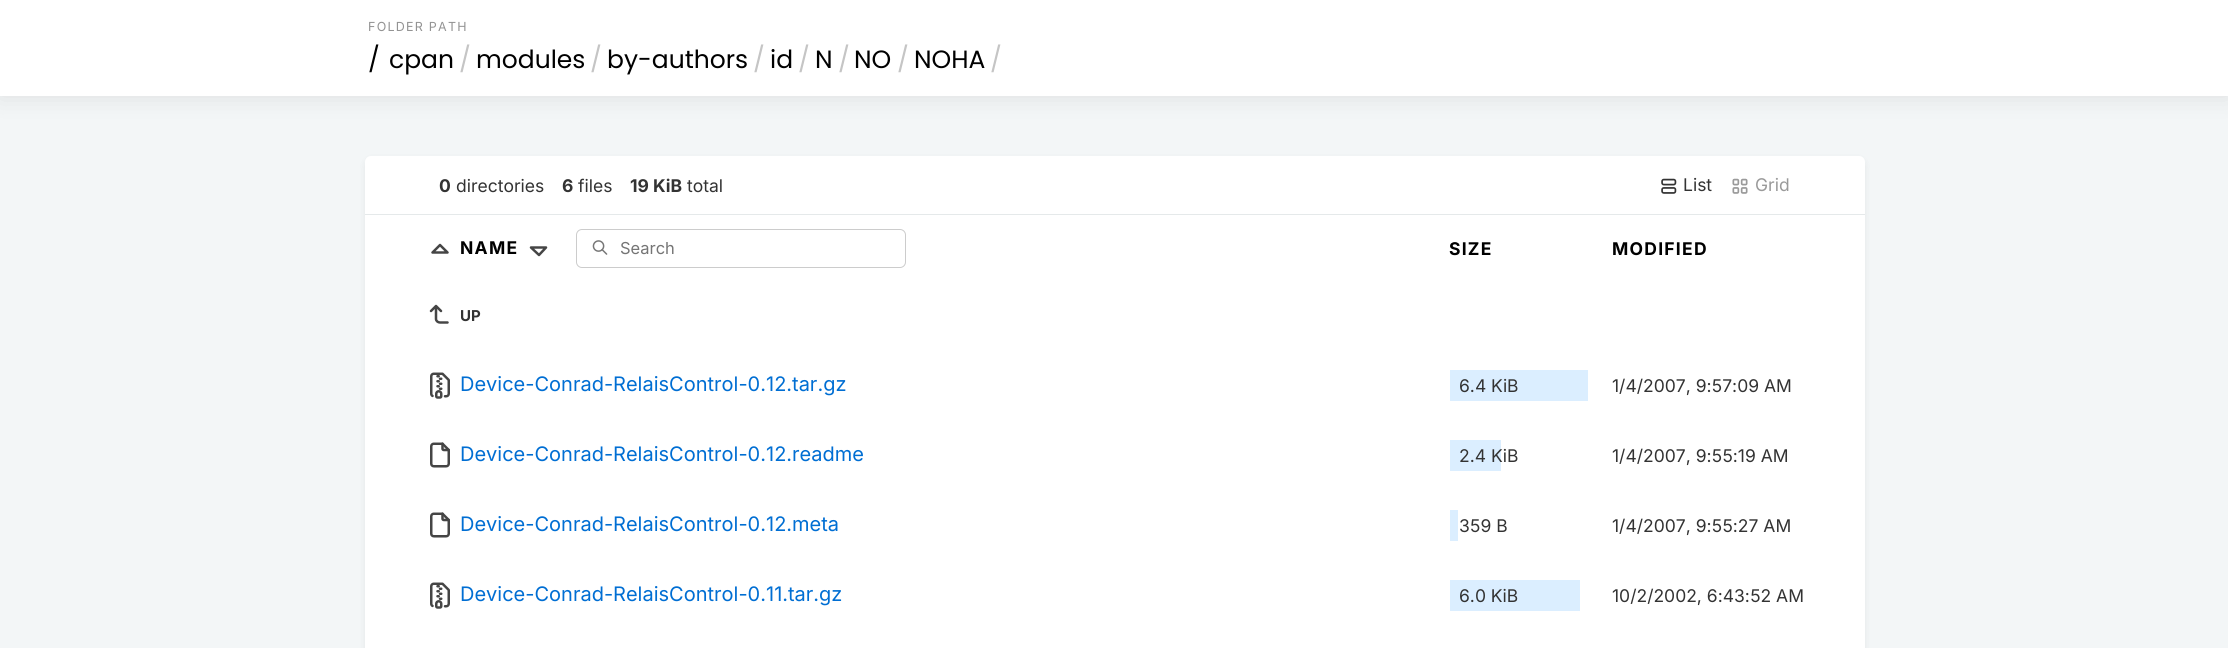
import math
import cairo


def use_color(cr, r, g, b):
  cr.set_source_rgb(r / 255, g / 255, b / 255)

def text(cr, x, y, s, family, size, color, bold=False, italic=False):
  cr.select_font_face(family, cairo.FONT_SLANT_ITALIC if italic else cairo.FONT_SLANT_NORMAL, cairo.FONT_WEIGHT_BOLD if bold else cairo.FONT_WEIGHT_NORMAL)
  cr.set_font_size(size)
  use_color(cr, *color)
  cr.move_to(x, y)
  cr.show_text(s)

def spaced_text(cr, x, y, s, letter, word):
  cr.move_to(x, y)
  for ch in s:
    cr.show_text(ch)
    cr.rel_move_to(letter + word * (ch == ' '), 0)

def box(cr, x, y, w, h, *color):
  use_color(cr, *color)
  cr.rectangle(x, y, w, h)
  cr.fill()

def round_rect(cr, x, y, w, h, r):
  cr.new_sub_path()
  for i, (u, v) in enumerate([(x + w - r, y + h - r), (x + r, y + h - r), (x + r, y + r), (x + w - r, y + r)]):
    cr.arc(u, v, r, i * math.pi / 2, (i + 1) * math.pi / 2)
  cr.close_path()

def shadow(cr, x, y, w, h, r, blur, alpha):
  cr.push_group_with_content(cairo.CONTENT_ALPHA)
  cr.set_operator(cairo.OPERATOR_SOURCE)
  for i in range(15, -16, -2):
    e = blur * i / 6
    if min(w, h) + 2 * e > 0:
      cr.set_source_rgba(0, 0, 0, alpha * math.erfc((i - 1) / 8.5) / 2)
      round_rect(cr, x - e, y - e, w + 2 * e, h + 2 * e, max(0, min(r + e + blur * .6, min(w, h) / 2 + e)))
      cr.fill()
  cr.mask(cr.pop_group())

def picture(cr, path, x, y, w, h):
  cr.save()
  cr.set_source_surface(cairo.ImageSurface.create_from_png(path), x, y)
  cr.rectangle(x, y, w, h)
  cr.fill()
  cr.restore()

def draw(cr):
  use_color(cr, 243, 246, 247)
  cr.paint()
  use_color(cr, 0, 0, 0)
  shadow(cr, 0, 0, 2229, 96, 0, 12.5, 0.1)
  box(cr, 0, 0, 2228, 96, 255, 255, 255)
  use_color(cr, 0, 0, 0)
  shadow(cr, 364, 158, 1502, 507, 8, 3, 0.05)
  use_color(cr, 255, 255, 255)
  round_rect(cr, 365, 156, 1500, 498, 6)
  cr.fill()
  box(cr, 365, 214, 1500, 1, 229, 233, 234)
  picture(cr, "img_01.png", 1661, 178, 16, 16)
  picture(cr, "img_02.png", 1732, 178, 16, 16)
  cr.new_path()
  cr.move_to(447.5, 252.5)
  cr.line_to(440, 245)
  cr.line_to(432.5, 252.5)
  cr.line_to(447.5, 252.5)
  use_color(cr, 69, 69, 69)
  cr.set_line_width(2.5)
  cr.set_line_cap(cairo.LINE_CAP_ROUND)
  cr.set_line_join(cairo.LINE_JOIN_ROUND)
  cr.stroke()
  cr.new_path()
  cr.move_to(531, 247.5)
  cr.line_to(539, 255)
  cr.line_to(546, 247.5)
  cr.line_to(531, 247.5)
  cr.stroke()
  picture(cr, "img_03.png", 592, 240, 16, 15)
  round_rect(cr, 576.5, 229.5, 329, 38, 5.5)
  use_color(cr, 204, 204, 204)
  cr.set_line_width(1)
  cr.set_line_cap(cairo.LINE_CAP_BUTT)
  cr.set_line_join(cairo.LINE_JOIN_MITER)
  cr.stroke()
  cr.new_path()
  cr.move_to(447.5, 322.5)
  cr.line_to(440, 322.5)
  cr.curve_to(438, 322.5, 436, 321, 436, 319)
  cr.line_to(436, 306)
  cr.line_to(431, 311)
  cr.move_to(441, 311)
  cr.line_to(436, 306)
  use_color(cr, 69, 69, 69)
  cr.set_line_width(2.5)
  cr.set_line_cap(cairo.LINE_CAP_ROUND)
  cr.set_line_join(cairo.LINE_JOIN_ROUND)
  cr.stroke()
  picture(cr, "img_04.png", 430, 372, 20, 27)
  box(cr, 1450, 370, 138, 31, 219, 238, 255)
  picture(cr, "img_05.png", 430, 442, 20, 26)
  box(cr, 1450, 440, 51, 31, 219, 238, 255)
  picture(cr, "img_05.png", 430, 512, 20, 26)
  box(cr, 1450, 510, 8, 31, 219, 238, 255)
  picture(cr, "img_04.png", 430, 582, 20, 27)
  box(cr, 1450, 580, 130, 31, 219, 238, 255)
  cr.select_font_face("Inter")
  cr.set_font_size(12.5)
  use_color(cr, 147, 147, 147)
  spaced_text(cr, 368, 31, "FOLDER PATH", 1.25, 0)
  text(cr, 368, 68, "/", "Poppins", 25, (0, 0, 0))
  text(cr, 389, 68, "cpan", "Poppins", 25, (0, 0, 0))
  text(cr, 459, 68, "/", "Poppins", 25, (197, 197, 197))
  text(cr, 476, 68, "modules", "Poppins", 25, (0, 0, 0))
  text(cr, 590, 68, "/", "Poppins", 25, (197, 197, 197))
  text(cr, 607, 68, "by-authors", "Poppins", 25, (0, 0, 0))
  text(cr, 753, 68, "/", "Poppins", 25, (197, 197, 197))
  text(cr, 770, 68, "id", "Poppins", 25, (0, 0, 0))
  text(cr, 798, 68, "/", "Poppins", 25, (197, 197, 197))
  text(cr, 815, 68, "N", "Poppins", 25, (0, 0, 0))
  text(cr, 838, 68, "/", "Poppins", 25, (197, 197, 197))
  text(cr, 854, 68, "NO", "Poppins", 25, (0, 0, 0))
  text(cr, 897, 68, "/", "Poppins", 25, (197, 197, 197))
  text(cr, 914, 68, "NOHA", "Poppins", 25, (0, 0, 0))
  text(cr, 990, 68, "/", "Poppins", 25, (197, 197, 197))
  text(cr, 439, 192, "0", "Inter", 17.5, (51, 51, 51), bold=True)
  text(cr, 456, 192, "directories", "Inter", 17.5, (51, 51, 51))
  text(cr, 562, 192, "6", "Inter", 17.5, (51, 51, 51), bold=True)
  text(cr, 578, 192, "files", "Inter", 17.5, (51, 51, 51))
  text(cr, 630, 192, "19 KiB", "Inter", 17.5, (51, 51, 51), bold=True)
  text(cr, 687, 192, "total", "Inter", 17.5, (51, 51, 51))
  text(cr, 1683, 191, "List", "Inter", 17.5, (51, 51, 51))
  text(cr, 1755, 191, "Grid", "Inter", 17.5, (154, 154, 154))
  cr.select_font_face("Inter", cairo.FONT_SLANT_NORMAL, cairo.FONT_WEIGHT_BOLD)
  use_color(cr, 0, 0, 0)
  spaced_text(cr, 460, 254, "NAME", 1.25, 0)
  text(cr, 620, 254, "Search", "Inter", 16.5, (117, 117, 117))
  cr.select_font_face("Inter", cairo.FONT_SLANT_NORMAL, cairo.FONT_WEIGHT_BOLD)
  cr.set_font_size(17.5)
  use_color(cr, 0, 0, 0)
  spaced_text(cr, 1449, 255, "SIZE", 1.25, 0)
  spaced_text(cr, 1612, 255, "MODIFIED", 1.25, 0)
  text(cr, 460, 321, "UP", "Inter", 15, (51, 51, 51), bold=True)
  text(cr, 460, 391, "Device-Conrad-RelaisControl-0.12.tar.gz", "Inter", 20, (0, 110, 211))
  text(cr, 1459, 392, "6.4 KiB", "Inter", 17.5, (51, 51, 51))
  text(cr, 1612, 392, "1/4/2007, 9:57:09 AM", "Inter", 17.5, (51, 51, 51))
  text(cr, 460, 461, "Device-Conrad-RelaisControl-0.12.readme", "Inter", 20, (0, 110, 211))
  text(cr, 1459, 462, "2.4 KiB", "Inter", 17.5, (51, 51, 51))
  text(cr, 1612, 462, "1/4/2007, 9:55:19 AM", "Inter", 17.5, (51, 51, 51))
  text(cr, 460, 531, "Device-Conrad-RelaisControl-0.12.meta", "Inter", 20, (0, 110, 211))
  text(cr, 1459, 532, "359 B", "Inter", 17.5, (51, 51, 51))
  text(cr, 1612, 532, "1/4/2007, 9:55:27 AM", "Inter", 17.5, (51, 51, 51))
  text(cr, 460, 601, "Device-Conrad-RelaisControl-0.11.tar.gz", "Inter", 20, (0, 110, 211))
  text(cr, 1459, 602, "6.0 KiB", "Inter", 17.5, (51, 51, 51))
  text(cr, 1612, 602, "10/2/2002, 6:43:52 AM", "Inter", 17.5, (51, 51, 51))


surface = cairo.ImageSurface(cairo.FORMAT_RGB24, 2228, 648)
cr = cairo.Context(surface)
options = cairo.FontOptions()
options.set_hint_metrics(cairo.HINT_METRICS_OFF)
options.set_hint_style(cairo.HINT_STYLE_NONE)
cr.set_font_options(options)
cr.set_miter_limit(4)
draw(cr)
surface.write_to_png("out.png")
